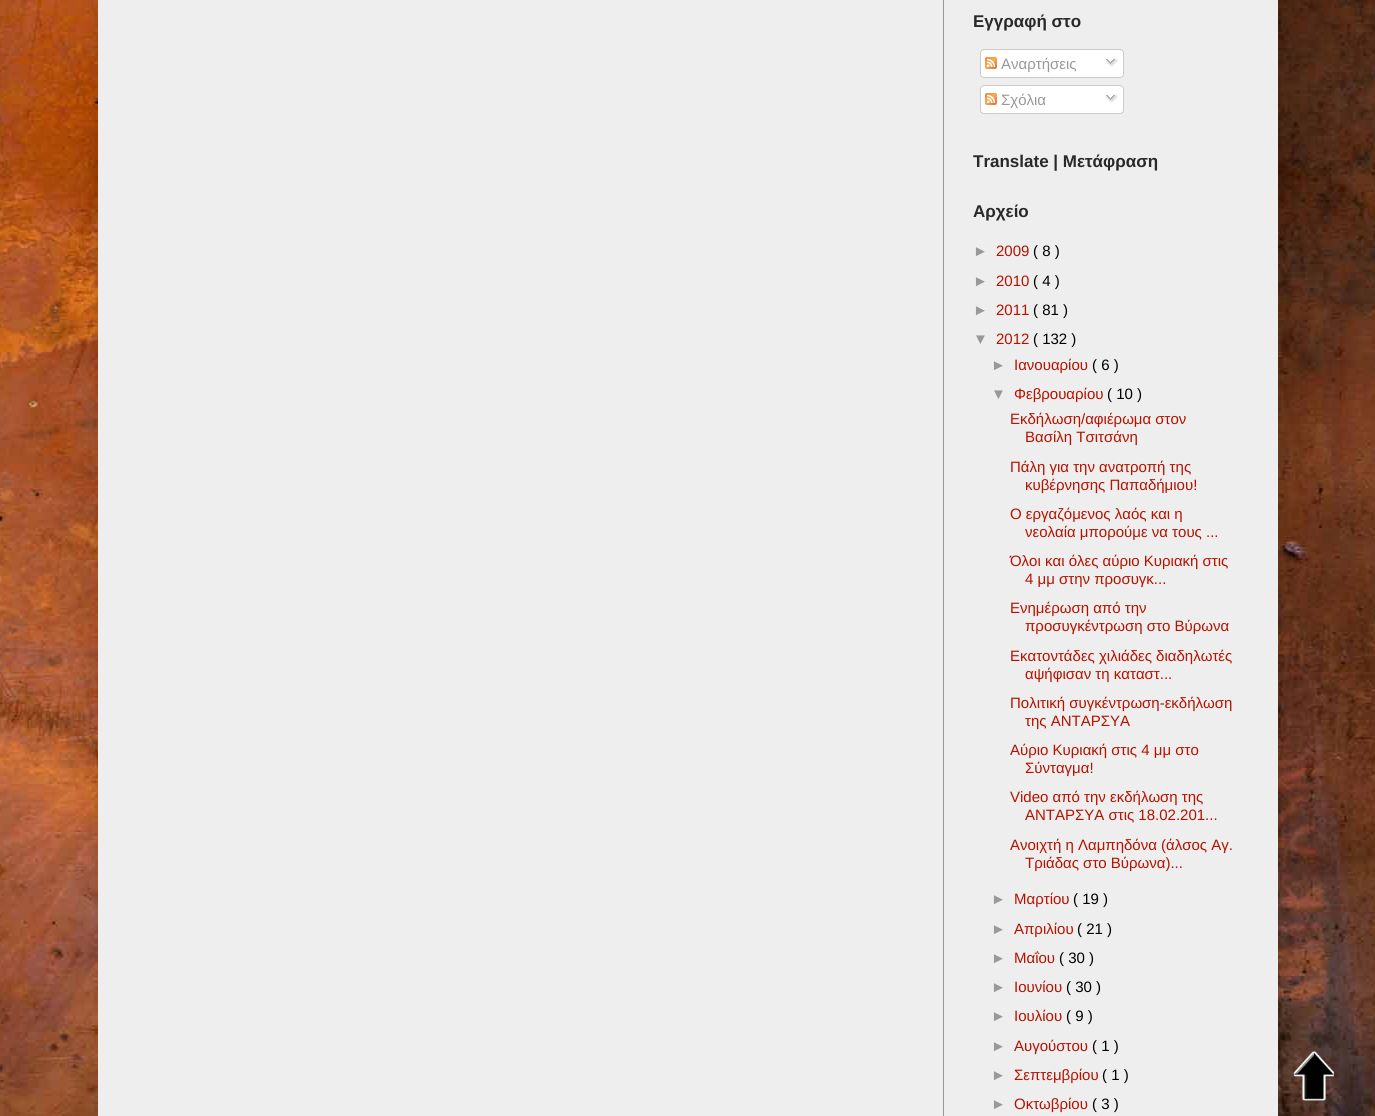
import math
import cairo


def use_color(cr, r, g, b):
  cr.set_source_rgb(r / 255, g / 255, b / 255)

def text(cr, x, y, s, family, size, color, bold=False, italic=False):
  cr.select_font_face(family, cairo.FONT_SLANT_ITALIC if italic else cairo.FONT_SLANT_NORMAL, cairo.FONT_WEIGHT_BOLD if bold else cairo.FONT_WEIGHT_NORMAL)
  cr.set_font_size(size)
  use_color(cr, *color)
  cr.move_to(x, y)
  cr.show_text(s)

def box(cr, x, y, w, h, *color):
  use_color(cr, *color)
  cr.rectangle(x, y, w, h)
  cr.fill()

def round_rect(cr, x, y, w, h, r):
  cr.new_sub_path()
  for i, (u, v) in enumerate([(x + w - r, y + h - r), (x + r, y + h - r), (x + r, y + r), (x + w - r, y + r)]):
    cr.arc(u, v, r, i * math.pi / 2, (i + 1) * math.pi / 2)
  cr.close_path()

def shadow(cr, x, y, w, h, r, blur, alpha):
  cr.push_group_with_content(cairo.CONTENT_ALPHA)
  cr.set_operator(cairo.OPERATOR_SOURCE)
  for i in range(15, -16, -2):
    e = blur * i / 6
    if min(w, h) + 2 * e > 0:
      cr.set_source_rgba(0, 0, 0, alpha * math.erfc((i - 1) / 8.5) / 2)
      round_rect(cr, x - e, y - e, w + 2 * e, h + 2 * e, max(0, min(r + e + blur * .6, min(w, h) / 2 + e)))
      cr.fill()
  cr.mask(cr.pop_group())

def picture(cr, path, x, y, w, h):
  cr.save()
  cr.set_source_surface(cairo.ImageSurface.create_from_png(path), x, y)
  cr.rectangle(x, y, w, h)
  cr.fill()
  cr.restore()

def draw(cr):
  use_color(cr, 255, 255, 255)
  cr.paint()
  picture(cr, "img_01.png", 0, 0, 1375, 1116)
  use_color(cr, 0, 0, 0)
  shadow(cr, 98, -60, 1180, 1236, 0, 20, 0.15)
  box(cr, 98, 0, 1180, 1116, 238, 238, 238)
  box(cr, 943, 0, 1, 1116, 153, 153, 153)
  picture(cr, "img_02.png", 980, 49, 144, 26)
  picture(cr, "img_03.png", 985, 57, 12, 12)
  picture(cr, "img_04.png", 1105, 58, 13, 9)
  picture(cr, "img_05.png", 980, 75, 144, 3)
  picture(cr, "img_02.png", 980, 85, 144, 26)
  picture(cr, "img_03.png", 985, 93, 12, 12)
  picture(cr, "img_04.png", 1105, 94, 13, 9)
  picture(cr, "img_05.png", 980, 111, 144, 3)
  picture(cr, "img_06.png", 1293, 1051, 41, 50)
  text(cr, 973, 27, "Εγγραφή στο", "Arimo", 17, (41, 41, 41), bold=True)
  text(cr, 1001, 69, "Αναρτήσεις", "Arimo", 15, (153, 153, 153))
  text(cr, 1001, 105, "Σχόλια", "Arimo", 15, (153, 153, 153))
  text(cr, 973, 167, "Translate | Μετάφραση", "Arimo", 17, (41, 41, 41), bold=True)
  text(cr, 973, 217, "Αρχείο", "Arimo", 17, (41, 41, 41), bold=True)
  text(cr, 973, 256, "►", "Liberation Sans", 15, (153, 153, 153))
  text(cr, 996, 256, "2009", "Arimo", 15, (181, 18, 0))
  text(cr, 1033, 256, "( 8 )", "Arimo", 15, (0, 0, 0))
  text(cr, 973, 286, "►", "Liberation Sans", 15, (153, 153, 153))
  text(cr, 996, 286, "2010", "Arimo", 15, (181, 18, 0))
  text(cr, 1033, 286, "( 4 )", "Arimo", 15, (0, 0, 0))
  text(cr, 973, 315, "►", "Liberation Sans", 15, (153, 153, 153))
  text(cr, 996, 315, "2011", "Arimo", 15, (181, 18, 0))
  text(cr, 1033, 315, "( 81 )", "Arimo", 15, (0, 0, 0))
  text(cr, 973, 344, "▼", "Liberation Sans", 15, (153, 153, 153))
  text(cr, 996, 344, "2012", "Arimo", 15, (181, 18, 0))
  text(cr, 1033, 344, "( 132 )", "Arimo", 15, (0, 0, 0))
  text(cr, 991, 370, "►", "Liberation Sans", 15, (153, 153, 153))
  text(cr, 1014, 370, "Ιανουαρίου", "Arimo", 15, (181, 18, 0))
  text(cr, 1092, 370, "( 6 )", "Arimo", 15, (0, 0, 0))
  text(cr, 991, 399, "▼", "Liberation Sans", 15, (153, 153, 153))
  text(cr, 1014, 399, "Φεβρουαρίου", "Arimo", 15, (181, 18, 0))
  text(cr, 1107, 399, "( 10 )", "Arimo", 15, (0, 0, 0))
  text(cr, 1010, 424, "Εκδήλωση/αφιέρωμα στον", "Arimo", 15, (181, 18, 0))
  text(cr, 1025, 442, "Βασίλη Τσιτσάνη", "Arimo", 15, (181, 18, 0))
  text(cr, 1010, 472, "Πάλη για την ανατροπή της", "Arimo", 15, (181, 18, 0))
  text(cr, 1025, 490, "κυβέρνησης Παπαδήμιου!", "Arimo", 15, (181, 18, 0))
  text(cr, 1010, 519, "Ο εργαζόμενος λαός και η", "Arimo", 15, (181, 18, 0))
  text(cr, 1025, 537, "νεολαία μπορούμε να τους ...", "Arimo", 15, (181, 18, 0))
  text(cr, 1010, 566, "Όλοι και όλες αύριο Κυριακή στις", "Arimo", 15, (181, 18, 0))
  text(cr, 1025, 584, "4 μμ στην προσυγκ...", "Arimo", 15, (181, 18, 0))
  text(cr, 1010, 613, "Ενημέρωση από την", "Arimo", 15, (181, 18, 0))
  text(cr, 1025, 631, "προσυγκέντρωση στο Βύρωνα", "Arimo", 15, (181, 18, 0))
  text(cr, 1010, 661, "Εκατοντάδες χιλιάδες διαδηλωτές", "Arimo", 15, (181, 18, 0))
  text(cr, 1025, 679, "αψήφισαν τη καταστ...", "Arimo", 15, (181, 18, 0))
  text(cr, 1010, 708, "Πολιτική συγκέντρωση-εκδήλωση", "Arimo", 15, (181, 18, 0))
  text(cr, 1025, 726, "της ΑΝΤΑΡΣΥΑ", "Arimo", 15, (181, 18, 0))
  text(cr, 1010, 755, "Αύριο Κυριακή στις 4 μμ στο", "Arimo", 15, (181, 18, 0))
  text(cr, 1025, 773, "Σύνταγμα!", "Arimo", 15, (181, 18, 0))
  text(cr, 1010, 802, "Video από την εκδήλωση της", "Arimo", 15, (181, 18, 0))
  text(cr, 1025, 820, "ΑΝΤΑΡΣΥΑ στις 18.02.201...", "Arimo", 15, (181, 18, 0))
  text(cr, 1010, 850, "Ανοιχτή η Λαμπηδόνα (άλσος Αγ.", "Arimo", 15, (181, 18, 0))
  text(cr, 1025, 868, "Τριάδας στο Βύρωνα)...", "Arimo", 15, (181, 18, 0))
  text(cr, 991, 904, "►", "Liberation Sans", 15, (153, 153, 153))
  text(cr, 1014, 904, "Μαρτίου", "Arimo", 15, (181, 18, 0))
  text(cr, 1073, 904, "( 19 )", "Arimo", 15, (0, 0, 0))
  text(cr, 991, 934, "►", "Liberation Sans", 15, (153, 153, 153))
  text(cr, 1014, 934, "Απριλίου", "Arimo", 15, (181, 18, 0))
  text(cr, 1077, 934, "( 21 )", "Arimo", 15, (0, 0, 0))
  text(cr, 991, 963, "►", "Liberation Sans", 15, (153, 153, 153))
  text(cr, 1014, 963, "Μαΐου", "Arimo", 15, (181, 18, 0))
  text(cr, 1059, 963, "( 30 )", "Arimo", 15, (0, 0, 0))
  text(cr, 991, 992, "►", "Liberation Sans", 15, (153, 153, 153))
  text(cr, 1014, 992, "Ιουνίου", "Arimo", 15, (181, 18, 0))
  text(cr, 1066, 992, "( 30 )", "Arimo", 15, (0, 0, 0))
  text(cr, 991, 1021, "►", "Liberation Sans", 15, (153, 153, 153))
  text(cr, 1014, 1021, "Ιουλίου", "Arimo", 15, (181, 18, 0))
  text(cr, 1066, 1021, "( 9 )", "Arimo", 15, (0, 0, 0))
  text(cr, 991, 1051, "►", "Liberation Sans", 15, (153, 153, 153))
  text(cr, 1014, 1051, "Αυγούστου", "Arimo", 15, (181, 18, 0))
  text(cr, 1092, 1051, "( 1 )", "Arimo", 15, (0, 0, 0))
  text(cr, 991, 1080, "►", "Liberation Sans", 15, (153, 153, 153))
  text(cr, 1014, 1080, "Σεπτεμβρίου", "Arimo", 15, (181, 18, 0))
  text(cr, 1102, 1080, "( 1 )", "Arimo", 15, (0, 0, 0))
  text(cr, 991, 1109, "►", "Liberation Sans", 15, (153, 153, 153))
  text(cr, 1014, 1109, "Οκτωβρίου", "Arimo", 15, (181, 18, 0))
  text(cr, 1092, 1109, "( 3 )", "Arimo", 15, (0, 0, 0))


surface = cairo.ImageSurface(cairo.FORMAT_RGB24, 1375, 1116)
cr = cairo.Context(surface)
options = cairo.FontOptions()
options.set_hint_metrics(cairo.HINT_METRICS_OFF)
options.set_hint_style(cairo.HINT_STYLE_NONE)
cr.set_font_options(options)
cr.set_miter_limit(4)
draw(cr)
surface.write_to_png("out.png")
